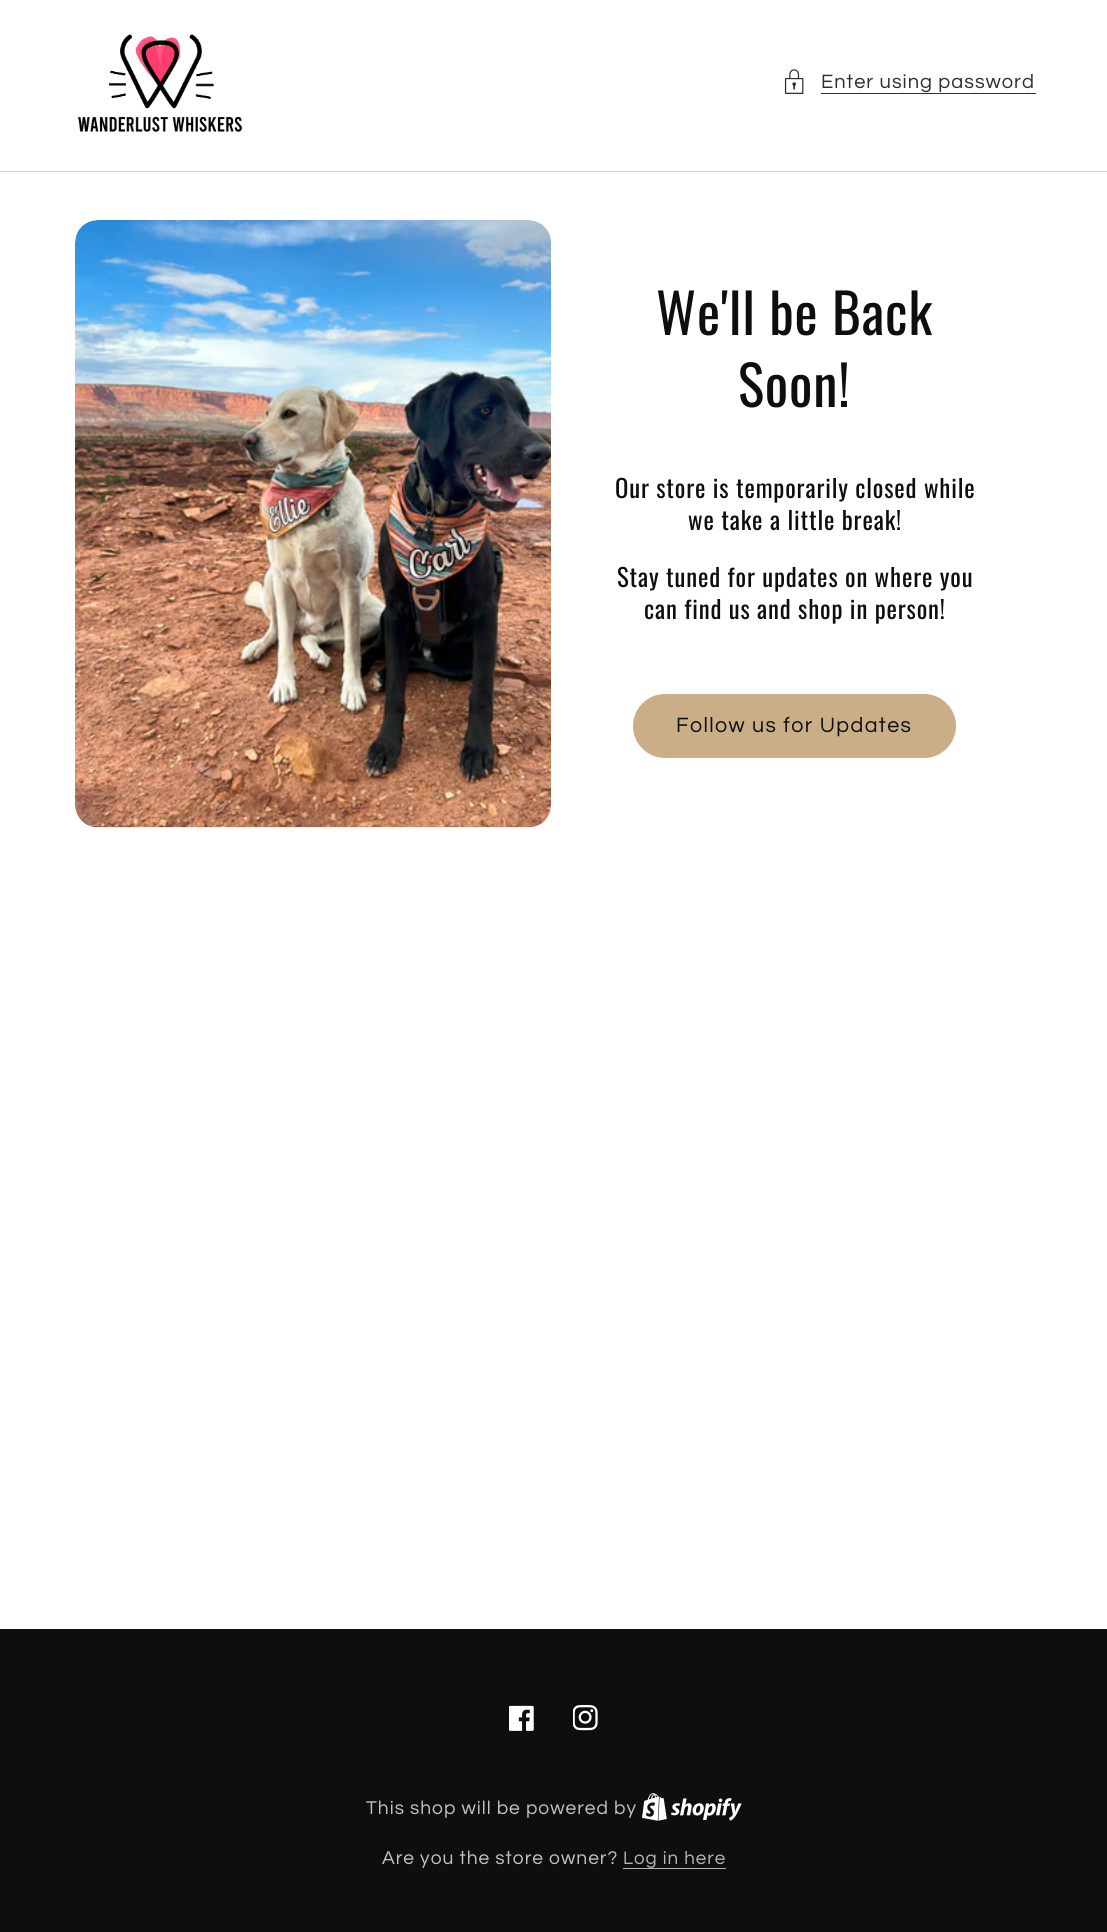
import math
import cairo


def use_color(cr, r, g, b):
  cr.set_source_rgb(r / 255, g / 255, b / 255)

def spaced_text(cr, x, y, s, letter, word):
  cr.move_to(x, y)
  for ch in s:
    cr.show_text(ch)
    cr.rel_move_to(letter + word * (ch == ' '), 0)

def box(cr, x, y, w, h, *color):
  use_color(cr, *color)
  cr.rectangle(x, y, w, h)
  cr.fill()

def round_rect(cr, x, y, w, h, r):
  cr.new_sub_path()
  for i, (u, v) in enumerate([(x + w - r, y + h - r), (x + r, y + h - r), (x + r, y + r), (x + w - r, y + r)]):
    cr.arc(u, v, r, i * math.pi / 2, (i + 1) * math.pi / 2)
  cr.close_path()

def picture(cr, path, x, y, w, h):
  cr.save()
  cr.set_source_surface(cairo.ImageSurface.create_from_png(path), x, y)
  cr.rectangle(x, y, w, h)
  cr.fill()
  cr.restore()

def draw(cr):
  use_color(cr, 255, 255, 255)
  cr.paint()
  picture(cr, "img_01.png", 78, 34, 164, 99)
  picture(cr, "img_02.png", 784, 69, 20, 25)
  box(cr, 821, 93, 215, 1, 46, 46, 47)
  box(cr, 0, 171, 1107, 1, 207, 207, 207)
  picture(cr, "img_03.png", 75, 220, 476, 608)
  use_color(cr, 201, 174, 136)
  round_rect(cr, 633, 694, 323, 64, 32)
  cr.fill()
  box(cr, 0, 1629, 1107, 303, 14, 14, 14)
  picture(cr, "img_04.png", 509, 1705, 25, 26)
  picture(cr, "img_05.png", 573, 1705, 25, 26)
  picture(cr, "img_06.png", 642, 1793, 100, 28)
  box(cr, 623, 1868, 103, 1, 183, 183, 183)
  cr.select_font_face("Questrial")
  cr.set_font_size(20.1)
  use_color(cr, 46, 46, 47)
  spaced_text(cr, 821, 88, "Enter using password", 1, 0)
  cr.select_font_face("Oswald")
  cr.set_font_size(55)
  use_color(cr, 14, 14, 14)
  spaced_text(cr, 656, 335, "We'll be Back", 0.85, 0)
  spaced_text(cr, 738, 407, "Soon!", 0.85, 0)
  cr.set_font_size(24.75)
  spaced_text(cr, 615, 498, "Our store is temporarily closed while", 0.85, 0)
  spaced_text(cr, 688, 530, "we take a little break!", 0.85, 0)
  spaced_text(cr, 617, 587, "Stay tuned for updates on where you", 0.85, 0)
  spaced_text(cr, 644, 619, "can find us and shop in person!", 0.85, 0)
  cr.select_font_face("Questrial")
  cr.set_font_size(21.5)
  spaced_text(cr, 676, 732, "Follow us for Updates", 1.4, 0)
  cr.set_font_size(19.2)
  use_color(cr, 195, 195, 195)
  spaced_text(cr, 366, 1814, "This shop will be powered by", 1, 0)
  spaced_text(cr, 382, 1864, "Are you the store owner?", 1, 0)
  cr.set_font_size(18.75)
  use_color(cr, 183, 183, 183)
  spaced_text(cr, 623, 1864, "Log in here", 1, 0)


surface = cairo.ImageSurface(cairo.FORMAT_RGB24, 1107, 1932)
cr = cairo.Context(surface)
options = cairo.FontOptions()
options.set_hint_metrics(cairo.HINT_METRICS_OFF)
options.set_hint_style(cairo.HINT_STYLE_NONE)
cr.set_font_options(options)
cr.set_miter_limit(4)
draw(cr)
surface.write_to_png("out.png")
